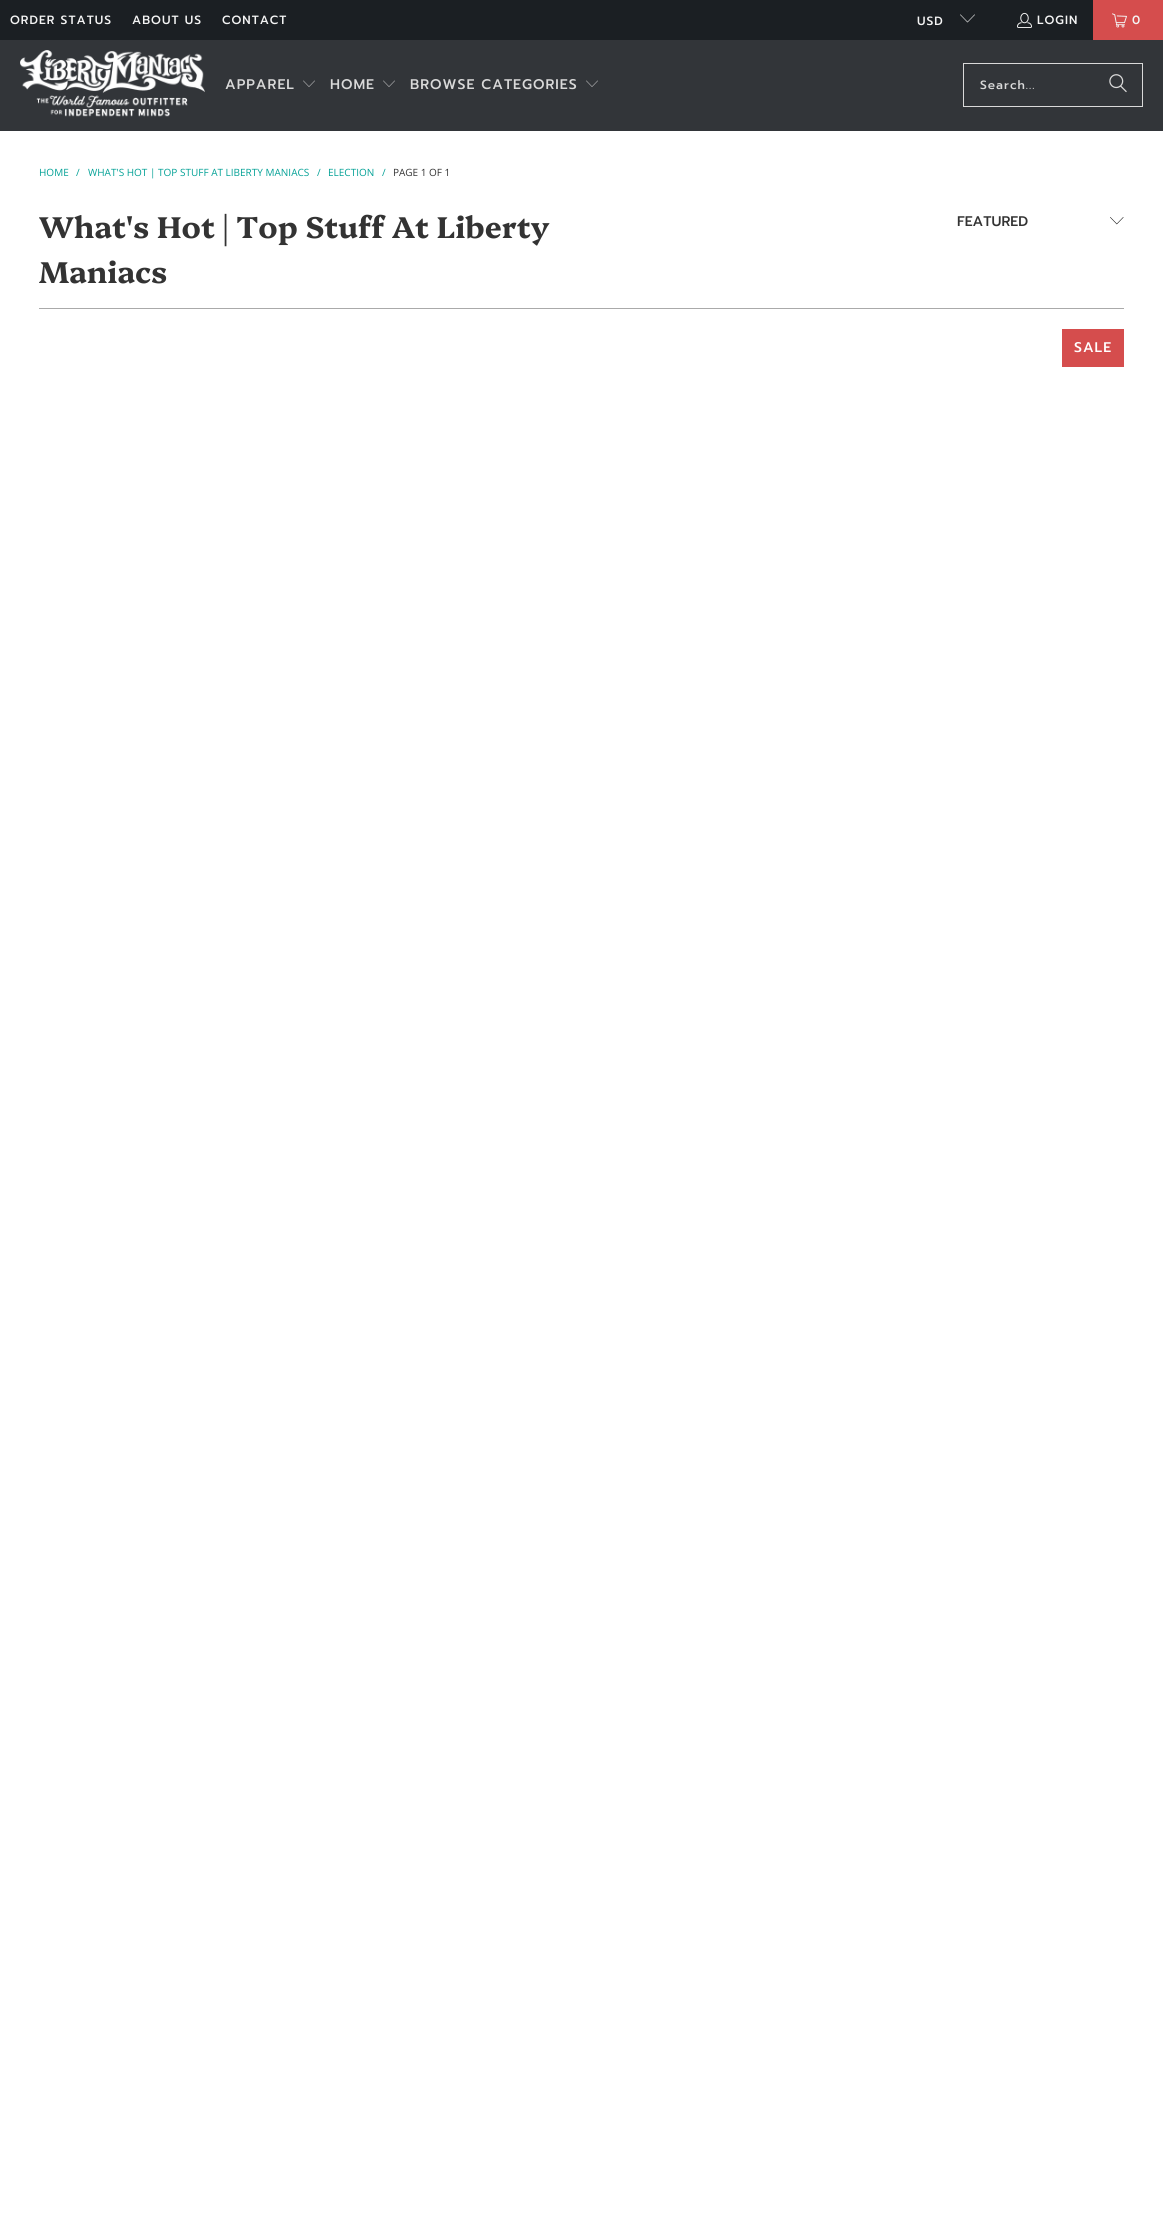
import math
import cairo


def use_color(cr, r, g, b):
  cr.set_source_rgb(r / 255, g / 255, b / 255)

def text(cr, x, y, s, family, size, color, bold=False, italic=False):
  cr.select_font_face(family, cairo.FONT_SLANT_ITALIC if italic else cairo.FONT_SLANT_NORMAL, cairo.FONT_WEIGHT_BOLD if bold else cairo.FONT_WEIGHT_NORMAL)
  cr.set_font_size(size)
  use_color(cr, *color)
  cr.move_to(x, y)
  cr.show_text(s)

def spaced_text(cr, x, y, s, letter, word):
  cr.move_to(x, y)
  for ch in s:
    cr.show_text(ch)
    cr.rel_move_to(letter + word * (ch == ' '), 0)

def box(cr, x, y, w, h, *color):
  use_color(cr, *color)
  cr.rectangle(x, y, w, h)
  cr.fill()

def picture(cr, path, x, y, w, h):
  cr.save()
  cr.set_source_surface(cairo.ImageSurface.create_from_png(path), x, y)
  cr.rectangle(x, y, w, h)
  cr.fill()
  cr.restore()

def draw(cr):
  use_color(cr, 255, 255, 255)
  cr.paint()
  box(cr, 0, 0, 1093, 40, 27, 31, 35)
  picture(cr, "img_01.png", 960, 14, 15, 9)
  picture(cr, "img_02.png", 1017, 12, 15, 16)
  box(cr, 1093, 0, 70, 40, 213, 77, 77)
  picture(cr, "img_03.png", 1112, 13, 15, 15)
  box(cr, 0, 40, 1163, 91, 50, 53, 57)
  picture(cr, "img_04.png", 20, 50, 185, 67)
  picture(cr, "img_05.png", 303, 80, 12, 7)
  picture(cr, "img_05.png", 383, 80, 12, 7)
  picture(cr, "img_05.png", 586, 80, 12, 7)
  cr.rectangle(963.5, 63.5, 179, 43)
  use_color(cr, 217, 217, 217)
  cr.set_line_width(1)
  cr.stroke()
  picture(cr, "img_06.png", 1109, 74, 18, 19)
  picture(cr, "img_07.png", 1110, 217, 14, 8)
  box(cr, 39, 308, 1085, 1, 170, 170, 170)
  box(cr, 1062, 329, 62, 38, 213, 77, 77)
  cr.select_font_face("Prompt Medium")
  cr.set_font_size(12)
  use_color(cr, 244, 244, 244)
  spaced_text(cr, 10, 24, "ORDER STATUS", 1, 0)
  spaced_text(cr, 132, 24, "ABOUT US", 1, 0)
  spaced_text(cr, 222, 24, "CONTACT", 1, 0)
  spaced_text(cr, 917, 25, "USD", 1, 0)
  spaced_text(cr, 1037, 24, "LOGIN", 1, 0)
  spaced_text(cr, 1132, 24, "0", 1, 0)
  cr.set_font_size(14)
  use_color(cr, 217, 217, 217)
  spaced_text(cr, 225, 89, "APPAREL", 1, 0)
  spaced_text(cr, 330, 89, "HOME", 1, 0)
  spaced_text(cr, 410, 89, "BROWSE CATEGORIES", 1, 0)
  cr.set_font_size(12)
  spaced_text(cr, 980, 89, "Search...", 1, 0)
  text(cr, 39, 176, "HOME", "Open Sans", 10, (3, 161, 150))
  text(cr, 76, 176, "/", "Open Sans", 10, (3, 161, 150))
  text(cr, 88, 176, "WHAT'S HOT | TOP STUFF AT LIBERTY MANIACS", "Open Sans", 10, (3, 161, 150))
  text(cr, 317, 176, "/", "Open Sans", 10, (3, 161, 150))
  text(cr, 328, 176, "ELECTION", "Open Sans", 10, (3, 161, 150))
  text(cr, 382, 176, "/", "Open Sans", 10, (3, 161, 150))
  text(cr, 393, 176, "PAGE 1 OF 1", "Open Sans", 10, (51, 51, 51))
  text(cr, 39, 238, "What's Hot | Top Stuff At Liberty", "Platypi", 30, (51, 51, 51), bold=True)
  text(cr, 39, 283, "Maniacs", "Platypi", 30, (51, 51, 51), bold=True)
  text(cr, 957, 226, "FEATURED", "Prompt Medium", 14, (51, 51, 51))
  use_color(cr, 255, 255, 255)
  spaced_text(cr, 1074, 352, "SALE", 1, 0)


surface = cairo.ImageSurface(cairo.FORMAT_RGB24, 1163, 2224)
cr = cairo.Context(surface)
options = cairo.FontOptions()
options.set_hint_metrics(cairo.HINT_METRICS_OFF)
options.set_hint_style(cairo.HINT_STYLE_NONE)
cr.set_font_options(options)
cr.set_miter_limit(4)
draw(cr)
surface.write_to_png("out.png")
